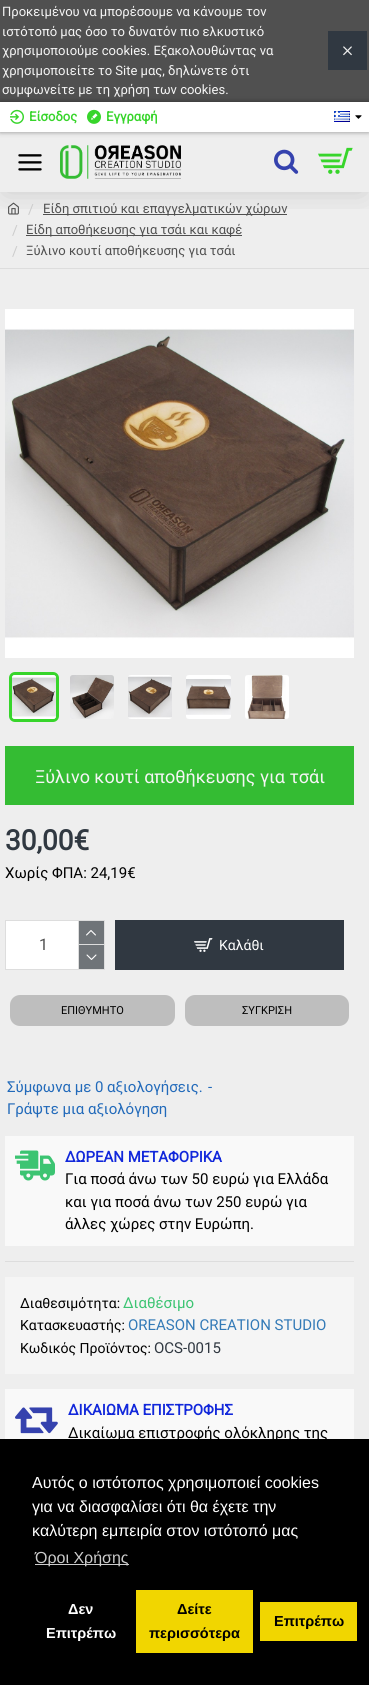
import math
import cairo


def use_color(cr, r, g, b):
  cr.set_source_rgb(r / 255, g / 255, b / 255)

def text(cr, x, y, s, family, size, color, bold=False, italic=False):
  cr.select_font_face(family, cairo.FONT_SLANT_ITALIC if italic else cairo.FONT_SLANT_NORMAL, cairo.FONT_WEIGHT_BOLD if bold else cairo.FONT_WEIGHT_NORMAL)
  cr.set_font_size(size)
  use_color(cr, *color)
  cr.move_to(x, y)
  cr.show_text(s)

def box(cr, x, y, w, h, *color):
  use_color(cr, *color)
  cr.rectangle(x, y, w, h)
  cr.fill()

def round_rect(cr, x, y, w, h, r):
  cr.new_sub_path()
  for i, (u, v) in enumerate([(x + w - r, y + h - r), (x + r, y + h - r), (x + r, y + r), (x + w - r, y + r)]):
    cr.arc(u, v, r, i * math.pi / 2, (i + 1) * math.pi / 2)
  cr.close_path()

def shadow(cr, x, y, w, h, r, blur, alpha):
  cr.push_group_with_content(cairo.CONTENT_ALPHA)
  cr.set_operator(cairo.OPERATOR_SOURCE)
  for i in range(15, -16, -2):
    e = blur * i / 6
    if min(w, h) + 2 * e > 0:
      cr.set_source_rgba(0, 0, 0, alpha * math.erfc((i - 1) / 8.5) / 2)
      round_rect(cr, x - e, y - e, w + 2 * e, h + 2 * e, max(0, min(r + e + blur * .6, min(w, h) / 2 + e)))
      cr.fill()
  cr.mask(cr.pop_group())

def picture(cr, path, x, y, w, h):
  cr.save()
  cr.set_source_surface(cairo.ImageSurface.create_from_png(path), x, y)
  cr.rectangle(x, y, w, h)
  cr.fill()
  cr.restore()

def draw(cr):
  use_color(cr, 238, 238, 238)
  cr.paint()
  box(cr, 0, 0, 369, 102, 80, 80, 80)
  box(cr, 328, 31, 39, 39, 48, 56, 65)
  picture(cr, "img_01.png", 343, 46, 9, 10)
  picture(cr, "img_10.png", 8, 202, 11, 13)
  box(cr, 43, 214, 244, 1, 80, 80, 80)
  box(cr, 26, 235, 216, 1, 80, 80, 80)
  cr.save()
  cr.rectangle(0, 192, 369, 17)
  cr.clip()
  use_color(cr, 0, 0, 0)
  shadow(cr, 5, 142, 359, 50, 0, 15, 0.15)
  cr.restore()
  picture(cr, "img_02.png", 60, 145, 121, 34)
  picture(cr, "img_03.png", 18, 154, 24, 17)
  picture(cr, "img_04.png", 274, 149, 25, 25)
  picture(cr, "img_05.png", 318, 147, 35, 27)
  use_color(cr, 0, 0, 0)
  shadow(cr, 0, 102, 369, 30, 0, 2.5, 0.42)
  box(cr, 0, 102, 369, 30, 255, 255, 255)
  picture(cr, "img_06.png", 10, 109, 14, 15)
  picture(cr, "img_07.png", 87, 109, 14, 15)
  picture(cr, "img_08.png", 334, 111, 16, 11)
  picture(cr, "img_09.png", 355, 115, 7, 4)
  box(cr, 0, 268, 369, 1, 221, 221, 221)
  picture(cr, "img_11.png", 5, 309, 349, 349)
  round_rect(cr, 10.5, 673.5, 47, 47, 4.5)
  use_color(cr, 55, 213, 43)
  cr.set_line_width(3)
  cr.stroke()
  picture(cr, "img_12.png", 12, 675, 44, 44)
  picture(cr, "img_13.png", 70, 675, 44, 44)
  picture(cr, "img_14.png", 128, 675, 44, 44)
  picture(cr, "img_15.png", 186, 675, 45, 44)
  picture(cr, "img_16.png", 245, 675, 44, 44)
  box(cr, 5, 746, 349, 59, 52, 188, 51)
  cr.rectangle(5.5, 920.5, 99, 49)
  use_color(cr, 221, 221, 221)
  cr.set_line_width(1)
  cr.stroke()
  box(cr, 6, 921, 72, 48, 255, 255, 255)
  box(cr, 78, 921, 1, 48, 221, 221, 221)
  box(cr, 79, 921, 25, 23, 111, 116, 120)
  box(cr, 79, 944, 25, 1, 221, 221, 221)
  picture(cr, "img_17.png", 86, 930, 10, 6)
  box(cr, 79, 945, 25, 24, 111, 116, 120)
  picture(cr, "img_18.png", 86, 954, 11, 6)
  box(cr, 115, 920, 229, 50, 48, 56, 65)
  picture(cr, "img_19.png", 194, 938, 19, 14)
  use_color(cr, 190, 190, 190)
  round_rect(cr, 10, 995, 165, 31, 10)
  cr.fill()
  round_rect(cr, 185, 995, 164, 31, 10)
  cr.fill()
  box(cr, 5, 1261, 349, 1, 221, 221, 221)
  box(cr, 5, 1136, 349, 110, 249, 249, 249)
  picture(cr, "img_20.png", 15, 1150, 40, 31)
  box(cr, 5, 1277, 349, 97, 245, 245, 245)
  box(cr, 5, 1389, 349, 50, 249, 249, 249)
  picture(cr, "img_21.png", 15, 1407, 43, 27)
  box(cr, 0, 1439, 369, 246, 0, 0, 0)
  box(cr, 35, 1564, 94, 1, 204, 204, 204)
  box(cr, 136, 1590, 117, 63, 241, 214, 0)
  box(cr, 260, 1602, 97, 39, 241, 214, 0)
  text(cr, 2, 16, "Προκειμένου να μπορέσουμε να κάνουμε τον", "Roboto", 13, (245, 245, 245))
  text(cr, 2, 36, "ιστότοπό μας όσο το δυνατόν πιο ελκυστικό", "Roboto", 13, (245, 245, 245))
  text(cr, 2, 55, "χρησιμοποιούμε cookies. Εξακολουθώντας να", "Roboto", 13, (245, 245, 245))
  text(cr, 2, 75, "χρησιμοποιείτε το Site μας, δηλώνετε ότι", "Roboto", 13, (245, 245, 245))
  text(cr, 2, 94, "συμφωνείτε με τη χρήση των cookies.", "Roboto", 13, (245, 245, 245))
  text(cr, 29, 121, "Είσοδος", "Roboto", 13, (55, 213, 43), bold=True)
  text(cr, 106, 121, "Εγγραφή", "Roboto", 13, (55, 213, 43), bold=True)
  text(cr, 28, 214, "/", "Roboto", 14, (204, 204, 204))
  text(cr, 43, 213, "Eίδη σπιτιού και επαγγελματικών χώρων", "Roboto", 13, (80, 80, 80))
  text(cr, 12, 235, "/", "Roboto", 14, (204, 204, 204))
  text(cr, 26, 234, "Είδη αποθήκευσης για τσάι και καφέ", "Roboto", 13, (80, 80, 80))
  text(cr, 12, 256, "/", "Roboto", 14, (204, 204, 204))
  text(cr, 26, 255, "Ξύλινο κουτί αποθήκευσης για τσάι", "Roboto", 13, (80, 80, 80))
  text(cr, 35, 783, "Ξύλινο κουτί αποθήκευσης για τσάι", "Roboto", 18, (245, 245, 245))
  text(cr, 5, 850, "30,00€", "Roboto", 28, (48, 56, 65), bold=True)
  text(cr, 5, 878, "Χωρίς ΦΠΑ: 24,19€", "Roboto", 15, (0, 0, 0))
  text(cr, 39, 950, "1", "Roboto", 16, (80, 80, 80))
  text(cr, 219, 950, "Καλάθι", "Roboto", 14, (255, 255, 255))
  text(cr, 61, 1014, "ΕΠΙΘΥΜΗΤΟ", "Roboto", 11, (0, 0, 0))
  text(cr, 242, 1014, "ΣΥΓΚΡΙΣΗ", "Roboto", 11, (0, 0, 0))
  text(cr, 7, 1092, "Σύμφωνα με 0 αξιολογήσεις.", "Roboto", 15, (34, 106, 186))
  text(cr, 208, 1092, "-", "Roboto", 15, (34, 106, 186))
  text(cr, 7, 1114, "Γράψτε μια αξιολόγηση", "Roboto", 15, (34, 106, 186))
  text(cr, 65, 1162, "ΔΩΡΕΑΝ ΜΕΤΑΦΟΡΙΚΑ", "Roboto", 15, (18, 40, 219), bold=True)
  text(cr, 65, 1184, "Για ποσά άνω των 50 ευρώ για Ελλάδα", "Roboto", 15, (0, 0, 0))
  text(cr, 65, 1207, "και για ποσά άνω των 250 ευρώ για", "Roboto", 15, (0, 0, 0))
  text(cr, 65, 1229, "άλλες χώρες στην Ευρώπη.", "Roboto", 15, (0, 0, 0))
  text(cr, 20, 1308, "Διαθεσιμότητα:", "Roboto", 14, (0, 0, 0))
  text(cr, 123, 1308, "Διαθέσιμο", "Roboto", 15, (60, 196, 114))
  text(cr, 20, 1330, "Κατασκευαστής:", "Roboto", 14, (0, 0, 0))
  text(cr, 128, 1330, "OREASON CREATION STUDIO", "Roboto", 15, (51, 122, 183))
  text(cr, 20, 1353, "Κωδικός Προϊόντος:", "Roboto", 14, (0, 0, 0))
  text(cr, 154, 1353, "OCS-0015", "Roboto", 15, (48, 56, 65))
  text(cr, 68, 1415, "ΔΙΚΑΙΩΜΑ ΕΠΙΣΤΡΟΦΗΣ", "Roboto", 15, (18, 40, 219), bold=True)
  text(cr, 68, 1438, "Δικαίωμα επιστροφής ολόκληρης της", "Roboto", 15, (0, 0, 0))
  text(cr, 32, 1488, "Αυτός ο ιστότοπος χρησιμοποιεί cookies", "Liberation Sans", 16, (255, 255, 255))
  text(cr, 32, 1512, "για να διασφαλίσει ότι θα έχετε την", "Liberation Sans", 16, (255, 255, 255))
  text(cr, 32, 1536, "καλύτερη εμπειρία στον ιστότοπό μας", "Liberation Sans", 16, (255, 255, 255))
  text(cr, 35, 1563, "Όροι Χρήσης", "Liberation Sans", 16, (204, 204, 204))
  text(cr, 68, 1614, "Δεν", "Liberation Sans", 14.5, (255, 255, 255), bold=True)
  text(cr, 46, 1638, "Επιτρέπω", "Liberation Sans", 14.5, (255, 255, 255), bold=True)
  text(cr, 177, 1614, "Δείτε", "Liberation Sans", 14.5, (0, 0, 0), bold=True)
  text(cr, 149, 1638, "περισσότερα", "Liberation Sans", 14.5, (0, 0, 0), bold=True)
  text(cr, 274, 1626, "Επιτρέπω", "Liberation Sans", 14.5, (0, 0, 0), bold=True)


surface = cairo.ImageSurface(cairo.FORMAT_RGB24, 369, 1685)
cr = cairo.Context(surface)
options = cairo.FontOptions()
options.set_hint_metrics(cairo.HINT_METRICS_OFF)
options.set_hint_style(cairo.HINT_STYLE_NONE)
cr.set_font_options(options)
cr.set_miter_limit(4)
draw(cr)
surface.write_to_png("out.png")
